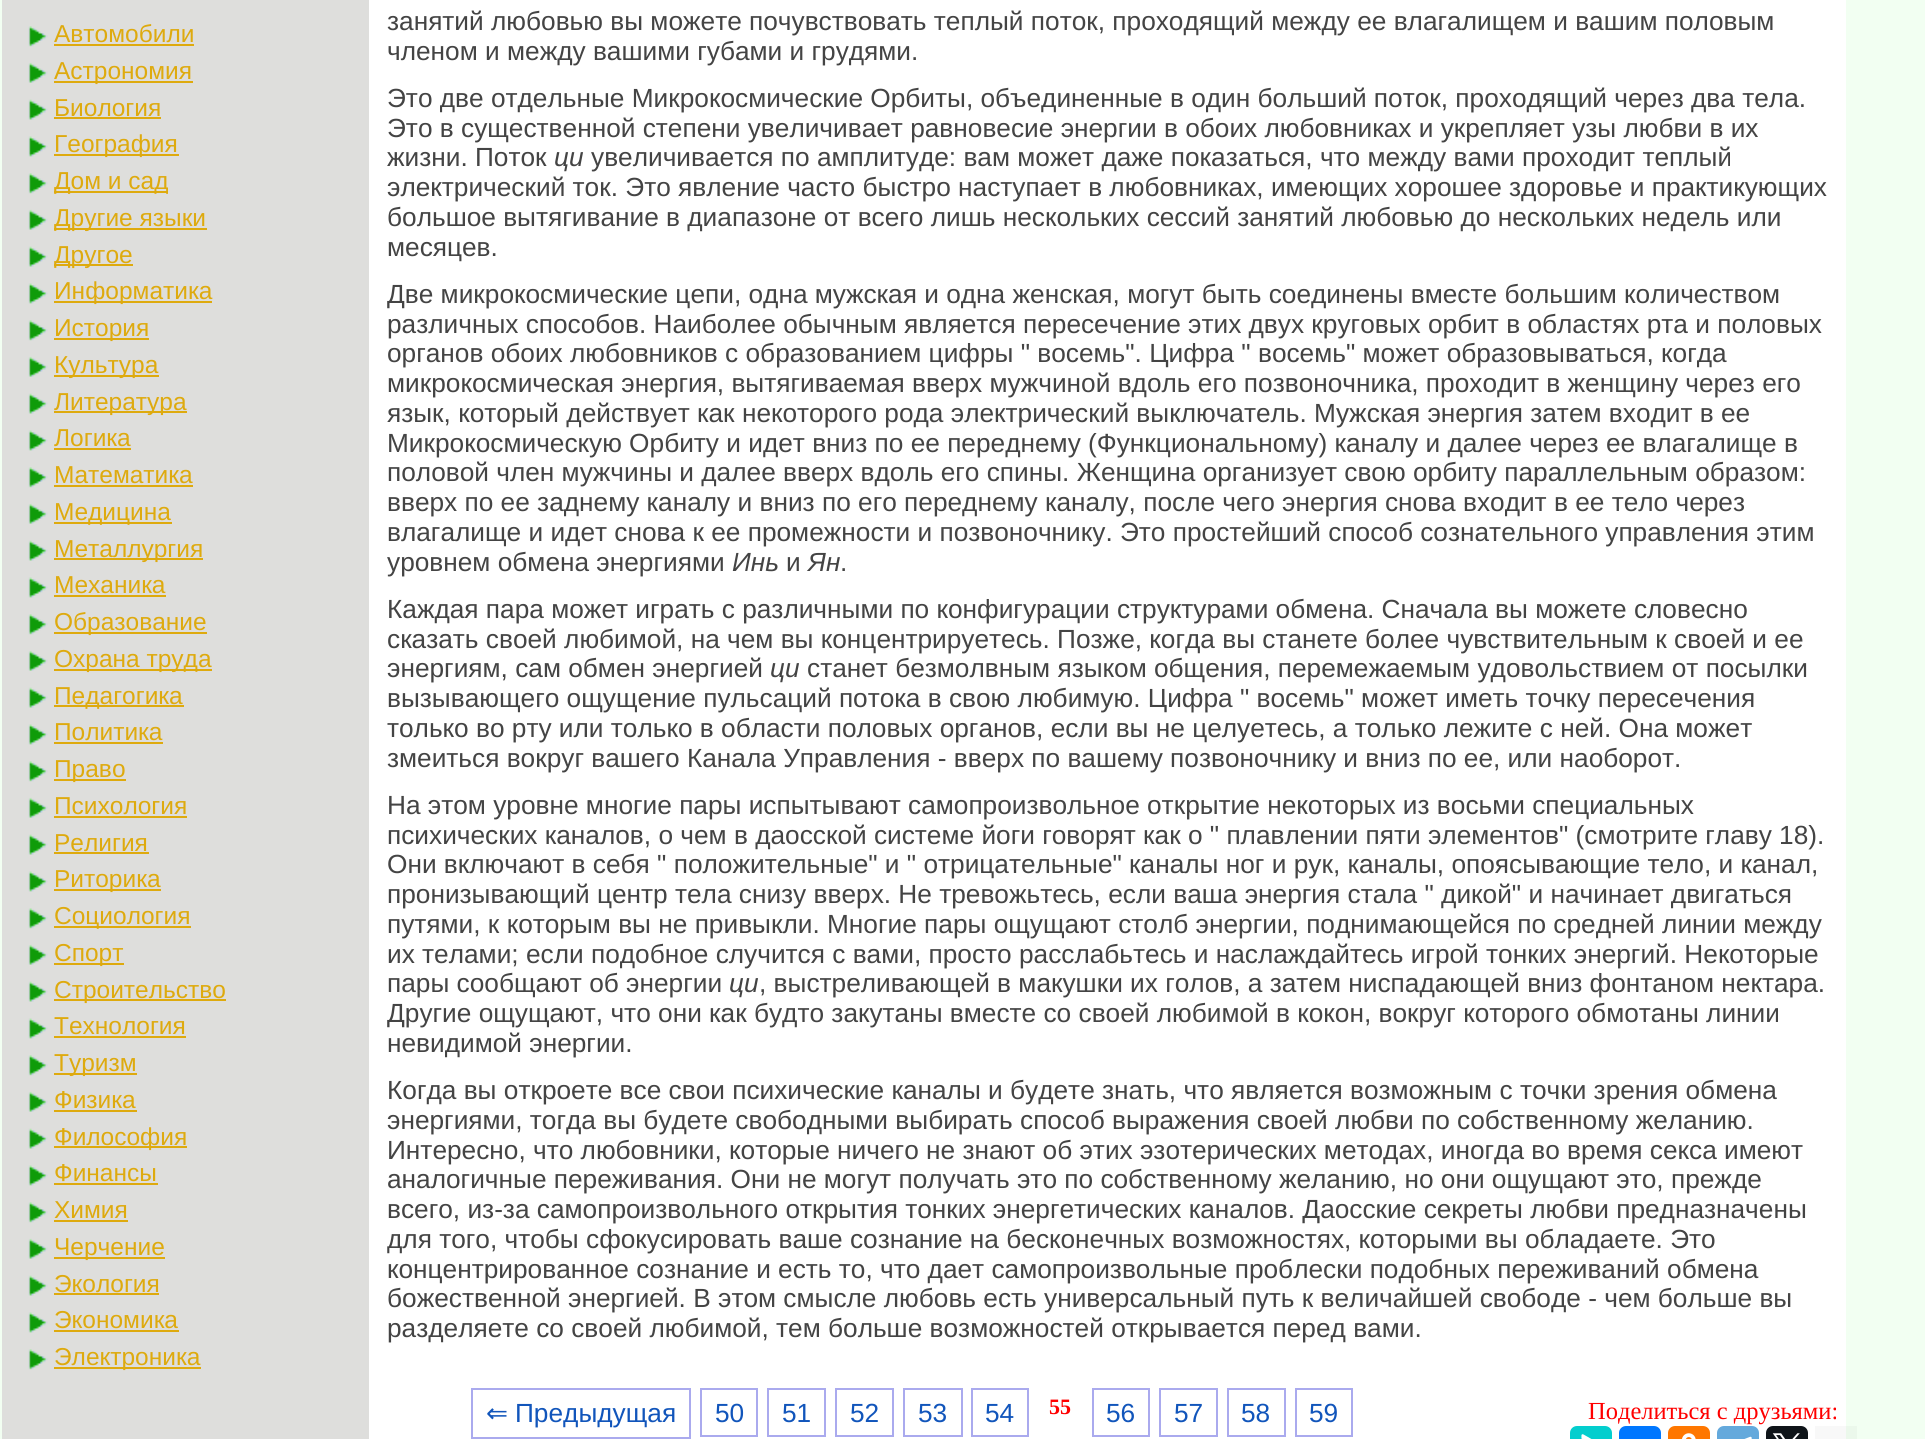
import math
import cairo

surface = cairo.ImageSurface(cairo.FORMAT_RGB24, 1925, 1439)
ctx = cairo.Context(surface)
options = cairo.FontOptions()
options.set_hint_metrics(cairo.HINT_METRICS_OFF)
options.set_hint_style(cairo.HINT_STYLE_NONE)
ctx.set_font_options(options)
ctx.set_miter_limit(4)


def set_color(code):
    ctx.set_source_rgb(*(v / 255 for v in bytes.fromhex(code[-6:])))


def draw_text(x, y, s, family, size, color, bold=False, italic=False):
    ctx.select_font_face(family, cairo.FONT_SLANT_ITALIC if italic else cairo.FONT_SLANT_NORMAL, cairo.FONT_WEIGHT_BOLD if bold else cairo.FONT_WEIGHT_NORMAL)
    ctx.set_font_size(size)
    set_color(color)
    ctx.move_to(x, y)
    ctx.show_text(s)


def fill_rect(x, y, w, h, color):
    set_color(color)
    ctx.rectangle(x, y, w, h)
    ctx.fill()


def rounded_rect(x, y, w, h, r):
    ctx.new_sub_path()
    for i, (u, v) in enumerate([(x + w - r, y + h - r), (x + r, y + h - r), (x + r, y + r), (x + w - r, y + r)]):
        ctx.arc(u, v, r, i * math.pi / 2, (i + 1) * math.pi / 2)
    ctx.close_path()


def draw_image(path, x, y, w, h):
    ctx.save()
    ctx.set_source_surface(cairo.ImageSurface.create_from_png(path), x, y)
    ctx.rectangle(x, y, w, h)
    ctx.fill()
    ctx.restore()


set_color("#f2fff2")
ctx.paint()
fill_rect(2, 0, 367, 1439, "#dededc")
draw_image("assets/img1.png", 28, 26, 20, 21)
draw_text(54, 42, "Автомобили", "Liberation Sans", 24.5, "#deaa0e")
fill_rect(54, 44, 140, 2, "#deaa0e")
draw_image("assets/img2.png", 28, 62, 20, 21)
fill_rect(54, 81, 139, 2, "#deaa0e")
draw_text(54, 79, "Астрономия", "Liberation Sans", 24.5, "#deaa0e")
draw_image("assets/img3.png", 28, 99, 20, 21)
draw_text(54, 116, "Биология", "Liberation Sans", 24.5, "#deaa0e")
fill_rect(54, 117, 107, 2, "#deaa0e")
draw_image("assets/img4.png", 28, 136, 20, 21)
fill_rect(54, 154, 125, 2, "#deaa0e")
draw_text(54, 152, "География", "Liberation Sans", 24.5, "#deaa0e")
draw_image("assets/img1.png", 28, 173, 20, 21)
fill_rect(54, 191, 114, 2, "#deaa0e")
draw_text(54, 189, "Дом и сад", "Liberation Sans", 24.5, "#deaa0e")
draw_image("assets/img2.png", 28, 209, 20, 21)
fill_rect(54, 228, 153, 2, "#deaa0e")
draw_text(54, 226, "Другие языки", "Liberation Sans", 24.5, "#deaa0e")
draw_image("assets/img3.png", 28, 246, 20, 21)
fill_rect(54, 264, 79, 2, "#deaa0e")
draw_text(54, 263, "Другое", "Liberation Sans", 24.5, "#deaa0e")
draw_image("assets/img4.png", 28, 283, 20, 21)
fill_rect(54, 301, 158, 2, "#deaa0e")
draw_text(54, 299, "Информатика", "Liberation Sans", 24.5, "#deaa0e")
draw_image("assets/img1.png", 28, 320, 20, 21)
fill_rect(54, 338, 95, 2, "#deaa0e")
draw_text(54, 336, "История", "Liberation Sans", 24.5, "#deaa0e")
draw_image("assets/img2.png", 28, 356, 20, 21)
fill_rect(54, 375, 105, 2, "#deaa0e")
draw_text(54, 373, "Культура", "Liberation Sans", 24.5, "#deaa0e")
draw_image("assets/img3.png", 28, 393, 20, 21)
fill_rect(54, 411, 133, 2, "#deaa0e")
draw_text(54, 410, "Литература", "Liberation Sans", 24.5, "#deaa0e")
draw_image("assets/img4.png", 28, 430, 20, 21)
draw_text(54, 446, "Логика", "Liberation Sans", 24.5, "#deaa0e")
fill_rect(54, 448, 77, 2, "#deaa0e")
draw_image("assets/img1.png", 28, 467, 20, 21)
draw_text(54, 483, "Математика", "Liberation Sans", 24.5, "#deaa0e")
fill_rect(54, 485, 139, 2, "#deaa0e")
draw_image("assets/img2.png", 28, 503, 20, 21)
fill_rect(54, 522, 118, 2, "#deaa0e")
draw_text(54, 520, "Медицина", "Liberation Sans", 24.5, "#deaa0e")
draw_image("assets/img3.png", 28, 540, 20, 21)
fill_rect(54, 558, 149, 2, "#deaa0e")
draw_text(54, 557, "Металлургия", "Liberation Sans", 24.5, "#deaa0e")
draw_image("assets/img4.png", 28, 577, 20, 21)
draw_text(54, 593, "Механика", "Liberation Sans", 24.5, "#deaa0e")
fill_rect(54, 595, 112, 2, "#deaa0e")
draw_image("assets/img1.png", 28, 614, 20, 21)
fill_rect(54, 632, 153, 2, "#deaa0e")
draw_text(54, 630, "Образование", "Liberation Sans", 24.5, "#deaa0e")
draw_image("assets/img2.png", 28, 650, 20, 21)
fill_rect(54, 669, 158, 2, "#deaa0e")
draw_text(54, 667, "Охрана труда", "Liberation Sans", 24.5, "#deaa0e")
draw_image("assets/img3.png", 28, 687, 20, 21)
fill_rect(54, 705, 130, 2, "#deaa0e")
draw_text(54, 704, "Педагогика", "Liberation Sans", 24.5, "#deaa0e")
draw_image("assets/img4.png", 28, 724, 20, 21)
draw_text(54, 740, "Политика", "Liberation Sans", 24.5, "#deaa0e")
fill_rect(54, 742, 109, 2, "#deaa0e")
draw_image("assets/img1.png", 28, 761, 20, 21)
fill_rect(54, 779, 72, 2, "#deaa0e")
draw_text(54, 777, "Право", "Liberation Sans", 24.5, "#deaa0e")
draw_image("assets/img2.png", 28, 797, 20, 21)
draw_text(54, 814, "Психология", "Liberation Sans", 24.5, "#deaa0e")
fill_rect(54, 816, 133, 2, "#deaa0e")
draw_image("assets/img3.png", 28, 834, 20, 21)
draw_text(54, 851, "Религия", "Liberation Sans", 24.5, "#deaa0e")
fill_rect(54, 852, 95, 2, "#deaa0e")
draw_image("assets/img4.png", 28, 871, 20, 21)
fill_rect(54, 889, 107, 2, "#deaa0e")
draw_text(54, 887, "Риторика", "Liberation Sans", 24.5, "#deaa0e")
draw_image("assets/img1.png", 28, 908, 20, 21)
fill_rect(54, 926, 137, 2, "#deaa0e")
draw_text(54, 924, "Социология", "Liberation Sans", 24.5, "#deaa0e")
draw_image("assets/img2.png", 28, 944, 20, 21)
fill_rect(54, 963, 70, 2, "#deaa0e")
draw_text(54, 961, "Спорт", "Liberation Sans", 24.5, "#deaa0e")
draw_image("assets/img3.png", 28, 981, 20, 21)
fill_rect(54, 999, 172, 2, "#deaa0e")
draw_text(54, 998, "Строительство", "Liberation Sans", 24.5, "#deaa0e")
draw_image("assets/img4.png", 28, 1018, 20, 21)
draw_text(54, 1034, "Технология", "Liberation Sans", 24.5, "#deaa0e")
fill_rect(54, 1036, 132, 2, "#deaa0e")
draw_image("assets/img1.png", 28, 1055, 20, 21)
fill_rect(54, 1073, 83, 2, "#deaa0e")
draw_text(54, 1071, "Туризм", "Liberation Sans", 24.5, "#deaa0e")
draw_image("assets/img2.png", 28, 1091, 20, 21)
draw_text(54, 1108, "Физика", "Liberation Sans", 24.5, "#deaa0e")
fill_rect(54, 1110, 83, 2, "#deaa0e")
draw_image("assets/img3.png", 28, 1128, 20, 21)
fill_rect(54, 1146, 133, 2, "#deaa0e")
draw_text(54, 1145, "Философия", "Liberation Sans", 24.5, "#deaa0e")
draw_image("assets/img4.png", 28, 1165, 20, 21)
draw_text(54, 1181, "Финансы", "Liberation Sans", 24.5, "#deaa0e")
fill_rect(54, 1183, 104, 2, "#deaa0e")
draw_image("assets/img1.png", 28, 1202, 20, 21)
draw_text(54, 1218, "Химия", "Liberation Sans", 24.5, "#deaa0e")
fill_rect(54, 1220, 74, 2, "#deaa0e")
draw_image("assets/img2.png", 28, 1238, 20, 21)
fill_rect(54, 1257, 111, 2, "#deaa0e")
draw_text(54, 1255, "Черчение", "Liberation Sans", 24.5, "#deaa0e")
draw_image("assets/img5.png", 28, 1275, 20, 21)
draw_text(54, 1292, "Экология", "Liberation Sans", 24.5, "#deaa0e")
fill_rect(54, 1293, 105, 2, "#deaa0e")
draw_image("assets/img4.png", 28, 1312, 20, 21)
draw_text(54, 1328, "Экономика", "Liberation Sans", 24.5, "#deaa0e")
fill_rect(54, 1330, 125, 2, "#deaa0e")
draw_image("assets/img1.png", 28, 1349, 20, 21)
fill_rect(54, 1367, 147, 2, "#deaa0e")
draw_text(54, 1365, "Электроника", "Liberation Sans", 24.5, "#deaa0e")
fill_rect(369, 0, 1477, 1439, "#ffffff")
draw_text(387, 30, "занятий любовью вы можете почувствовать теплый поток, проходящий между ее влагалищем и вашим половым", "Liberation Sans", 26.25, "#444444")
draw_text(387, 60, "членом и между вашими губами и грудями.", "Liberation Sans", 26.25, "#444444")
draw_text(387, 107, "Это две отдельные Микрокосмические Орбиты, объединенные в один больший поток, проходящий через два тела.", "Liberation Sans", 26.25, "#444444")
draw_text(387, 137, "Это в существенной степени увеличивает равновесие энергии в обоих любовниках и укрепляет узы любви в их", "Liberation Sans", 26.25, "#444444")
draw_text(387, 166, "жизни. Поток", "Liberation Sans", 26.25, "#444444")
draw_text(554, 166, "ци", "Liberation Sans", 26.25, "#444444", italic=True)
draw_text(591, 166, "увеличивается по амплитуде: вам может даже показаться, что между вами проходит теплый", "Liberation Sans", 26.25, "#444444")
draw_text(387, 196, "электрический ток. Это явление часто быстро наступает в любовниках, имеющих хорошее здоровье и практикующих", "Liberation Sans", 26.25, "#444444")
draw_text(387, 226, "большое вытягивание в диапазоне от всего лишь нескольких сессий занятий любовью до нескольких недель или", "Liberation Sans", 26.25, "#444444")
draw_text(387, 256, "месяцев.", "Liberation Sans", 26.25, "#444444")
draw_text(387, 303, "Две микрокосмические цепи, одна мужская и одна женская, могут быть соединены вместе большим количеством", "Liberation Sans", 26.25, "#444444")
draw_text(387, 333, "различных способов. Наиболее обычным является пересечение этих двух круговых орбит в областях рта и половых", "Liberation Sans", 26.25, "#444444")
draw_text(387, 362, "органов обоих любовников с образованием цифры \" восемь\". Цифра \" восемь\" может образовываться, когда", "Liberation Sans", 26.25, "#444444")
draw_text(387, 392, "микрокосмическая энергия, вытягиваемая вверх мужчиной вдоль его позвоночника, проходит в женщину через его", "Liberation Sans", 26.25, "#444444")
draw_text(387, 422, "язык, который действует как некоторого рода электрический выключатель. Мужская энергия затем входит в ее", "Liberation Sans", 26.25, "#444444")
draw_text(387, 452, "Микрокосмическую Орбиту и идет вниз по ее переднему (Функциональному) каналу и далее через ее влагалище в", "Liberation Sans", 26.25, "#444444")
draw_text(387, 481, "половой член мужчины и далее вверх вдоль его спины. Женщина организует свою орбиту параллельным образом:", "Liberation Sans", 26.25, "#444444")
draw_text(387, 511, "вверх по ее заднему каналу и вниз по его переднему каналу, после чего энергия снова входит в ее тело через", "Liberation Sans", 26.25, "#444444")
draw_text(387, 541, "влагалище и идет снова к ее промежности и позвоночнику. Это простейший способ сознательного управления этим", "Liberation Sans", 26.25, "#444444")
draw_text(387, 571, "уровнем обмена энергиями", "Liberation Sans", 26.25, "#444444")
draw_text(732, 571, "Инь", "Liberation Sans", 26.25, "#444444", italic=True)
draw_text(786, 571, "и", "Liberation Sans", 26.25, "#444444")
draw_text(808, 571, "Ян", "Liberation Sans", 26.25, "#444444", italic=True)
draw_text(840, 571, ".", "Liberation Sans", 26.25, "#444444")
draw_text(387, 618, "Каждая пара может играть с различными по конфигурации структурами обмена. Сначала вы можете словесно", "Liberation Sans", 26.25, "#444444")
draw_text(387, 648, "сказать своей любимой, на чем вы концентрируетесь. Позже, когда вы станете более чувствительным к своей и ее", "Liberation Sans", 26.25, "#444444")
draw_text(387, 677, "энергиям, сам обмен энергией", "Liberation Sans", 26.25, "#444444")
draw_text(770, 677, "ци", "Liberation Sans", 26.25, "#444444", italic=True)
draw_text(807, 677, "станет безмолвным языком общения, перемежаемым удовольствием от посылки", "Liberation Sans", 26.25, "#444444")
draw_text(387, 707, "вызывающего ощущение пульсаций потока в свою любимую. Цифра \" восемь\" может иметь точку пересечения", "Liberation Sans", 26.25, "#444444")
draw_text(387, 737, "только во рту или только в области половых органов, если вы не целуетесь, а только лежите с ней. Она может", "Liberation Sans", 26.25, "#444444")
draw_text(387, 767, "змеиться вокруг вашего Канала Управления - вверх по вашему позвоночнику и вниз по ее, или наоборот.", "Liberation Sans", 26.25, "#444444")
draw_text(387, 814, "На этом уровне многие пары испытывают самопроизвольное открытие некоторых из восьми специальных", "Liberation Sans", 26.25, "#444444")
draw_text(387, 844, "психических каналов, о чем в даосской системе йоги говорят как о \" плавлении пяти элементов\" (смотрите главу 18).", "Liberation Sans", 26.25, "#444444")
draw_text(387, 873, "Они включают в себя \" положительные\" и \" отрицательные\" каналы ног и рук, каналы, опоясывающие тело, и канал,", "Liberation Sans", 26.25, "#444444")
draw_text(387, 903, "пронизывающий центр тела снизу вверх. Не тревожьтесь, если ваша энергия стала \" дикой\" и начинает двигаться", "Liberation Sans", 26.25, "#444444")
draw_text(387, 933, "путями, к которым вы не привыкли. Многие пары ощущают столб энергии, поднимающейся по средней линии между", "Liberation Sans", 26.25, "#444444")
draw_text(387, 963, "их телами; если подобное случится с вами, просто расслабьтесь и наслаждайтесь игрой тонких энергий. Некоторые", "Liberation Sans", 26.25, "#444444")
draw_text(387, 992, "пары сообщают об энергии", "Liberation Sans", 26.25, "#444444")
draw_text(729, 992, "ци", "Liberation Sans", 26.25, "#444444", italic=True)
draw_text(759, 992, ", выстреливающей в макушки их голов, а затем ниспадающей вниз фонтаном нектара.", "Liberation Sans", 26.25, "#444444")
draw_text(387, 1022, "Другие ощущают, что они как будто закутаны вместе со своей любимой в кокон, вокруг которого обмотаны линии", "Liberation Sans", 26.25, "#444444")
draw_text(387, 1052, "невидимой энергии.", "Liberation Sans", 26.25, "#444444")
draw_text(387, 1099, "Когда вы откроете все свои психические каналы и будете знать, что является возможным с точки зрения обмена", "Liberation Sans", 26.25, "#444444")
draw_text(387, 1129, "энергиями, тогда вы будете свободными выбирать способ выражения своей любви по собственному желанию.", "Liberation Sans", 26.25, "#444444")
draw_text(387, 1159, "Интересно, что любовники, которые ничего не знают об этих эзотерических методах, иногда во время секса имеют", "Liberation Sans", 26.25, "#444444")
draw_text(387, 1188, "аналогичные переживания. Они не могут получать это по собственному желанию, но они ощущают это, прежде", "Liberation Sans", 26.25, "#444444")
draw_text(387, 1218, "всего, из-за самопроизвольного открытия тонких энергетических каналов. Даосские секреты любви предназначены", "Liberation Sans", 26.25, "#444444")
draw_text(387, 1248, "для того, чтобы сфокусировать ваше сознание на бесконечных возможностях, которыми вы обладаете. Это", "Liberation Sans", 26.25, "#444444")
draw_text(387, 1278, "концентрированное сознание и есть то, что дает самопроизвольные проблески подобных переживаний обмена", "Liberation Sans", 26.25, "#444444")
draw_text(387, 1307, "божественной энергией. В этом смысле любовь есть универсальный путь к величайшей свободе - чем больше вы", "Liberation Sans", 26.25, "#444444")
draw_text(387, 1337, "разделяете со своей любимой, тем больше возможностей открывается перед вами.", "Liberation Sans", 26.25, "#444444")
ctx.rectangle(472, 1389, 218, 49)
set_color("#aaaaee")
ctx.stroke()
draw_text(486, 1422, "⇐", "DejaVu Sans", 26.25, "#1155bb")
draw_text(515, 1422, "Предыдущая", "Liberation Sans", 26.25, "#1155bb")
ctx.rectangle(701, 1389, 56, 47)
set_color("#aaaaee")
ctx.stroke()
draw_text(715, 1422, "50", "Liberation Sans", 26.25, "#1155bb")
ctx.rectangle(768, 1389, 57, 47)
set_color("#aaaaee")
ctx.stroke()
draw_text(782, 1422, "51", "Liberation Sans", 26.25, "#1155bb")
ctx.rectangle(836, 1389, 57, 47)
set_color("#aaaaee")
ctx.stroke()
draw_text(850, 1422, "52", "Liberation Sans", 26.25, "#1155bb")
ctx.rectangle(904, 1389, 58, 47)
set_color("#aaaaee")
ctx.stroke()
draw_text(918, 1422, "53", "Liberation Sans", 26.25, "#1155bb")
ctx.rectangle(972, 1389, 56, 47)
set_color("#aaaaee")
ctx.stroke()
draw_text(985, 1422, "54", "Liberation Sans", 26.25, "#1155bb")
draw_text(1049, 1414, "55", "Liberation Serif", 22, "#ff0000", bold=True)
ctx.rectangle(1093, 1389, 56, 47)
set_color("#aaaaee")
ctx.stroke()
draw_text(1106, 1422, "56", "Liberation Sans", 26.25, "#1155bb")
ctx.rectangle(1160, 1389, 57, 47)
set_color("#aaaaee")
ctx.stroke()
draw_text(1174, 1422, "57", "Liberation Sans", 26.25, "#1155bb")
ctx.rectangle(1228, 1389, 57, 47)
set_color("#aaaaee")
ctx.stroke()
draw_text(1241, 1422, "58", "Liberation Sans", 26.25, "#1155bb")
ctx.rectangle(1296, 1389, 56, 47)
set_color("#aaaaee")
ctx.stroke()
draw_text(1309, 1422, "59", "Liberation Sans", 26.25, "#1155bb")
draw_text(1588, 1419, "Поделиться с друзьями:", "Liberation Serif", 24.5, "#ff0000")
set_color("#03cece")
rounded_rect(1570, 1426, 42, 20, 7)
ctx.fill()
draw_image("assets/img6.png", 1581, 1434, 11, 5)
set_color("#0077ff")
rounded_rect(1619, 1426, 42, 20, 7)
ctx.fill()
set_color("#ff7700")
rounded_rect(1668, 1426, 42, 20, 7)
ctx.fill()
draw_image("assets/img7.png", 1682, 1433, 14, 6)
set_color("#64a9dc")
rounded_rect(1717, 1426, 42, 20, 7)
ctx.fill()
draw_image("assets/img8.png", 1744, 1436, 8, 3)
set_color("#0f1419")
rounded_rect(1766, 1426, 42, 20, 7)
ctx.fill()
draw_image("assets/img9.png", 1772, 1433, 28, 6)
ctx.set_source_rgba(0, 0, 0, 0.03)
ctx.rectangle(1815, 1426, 42, 13)
ctx.fill()
surface.write_to_png("output.png")
